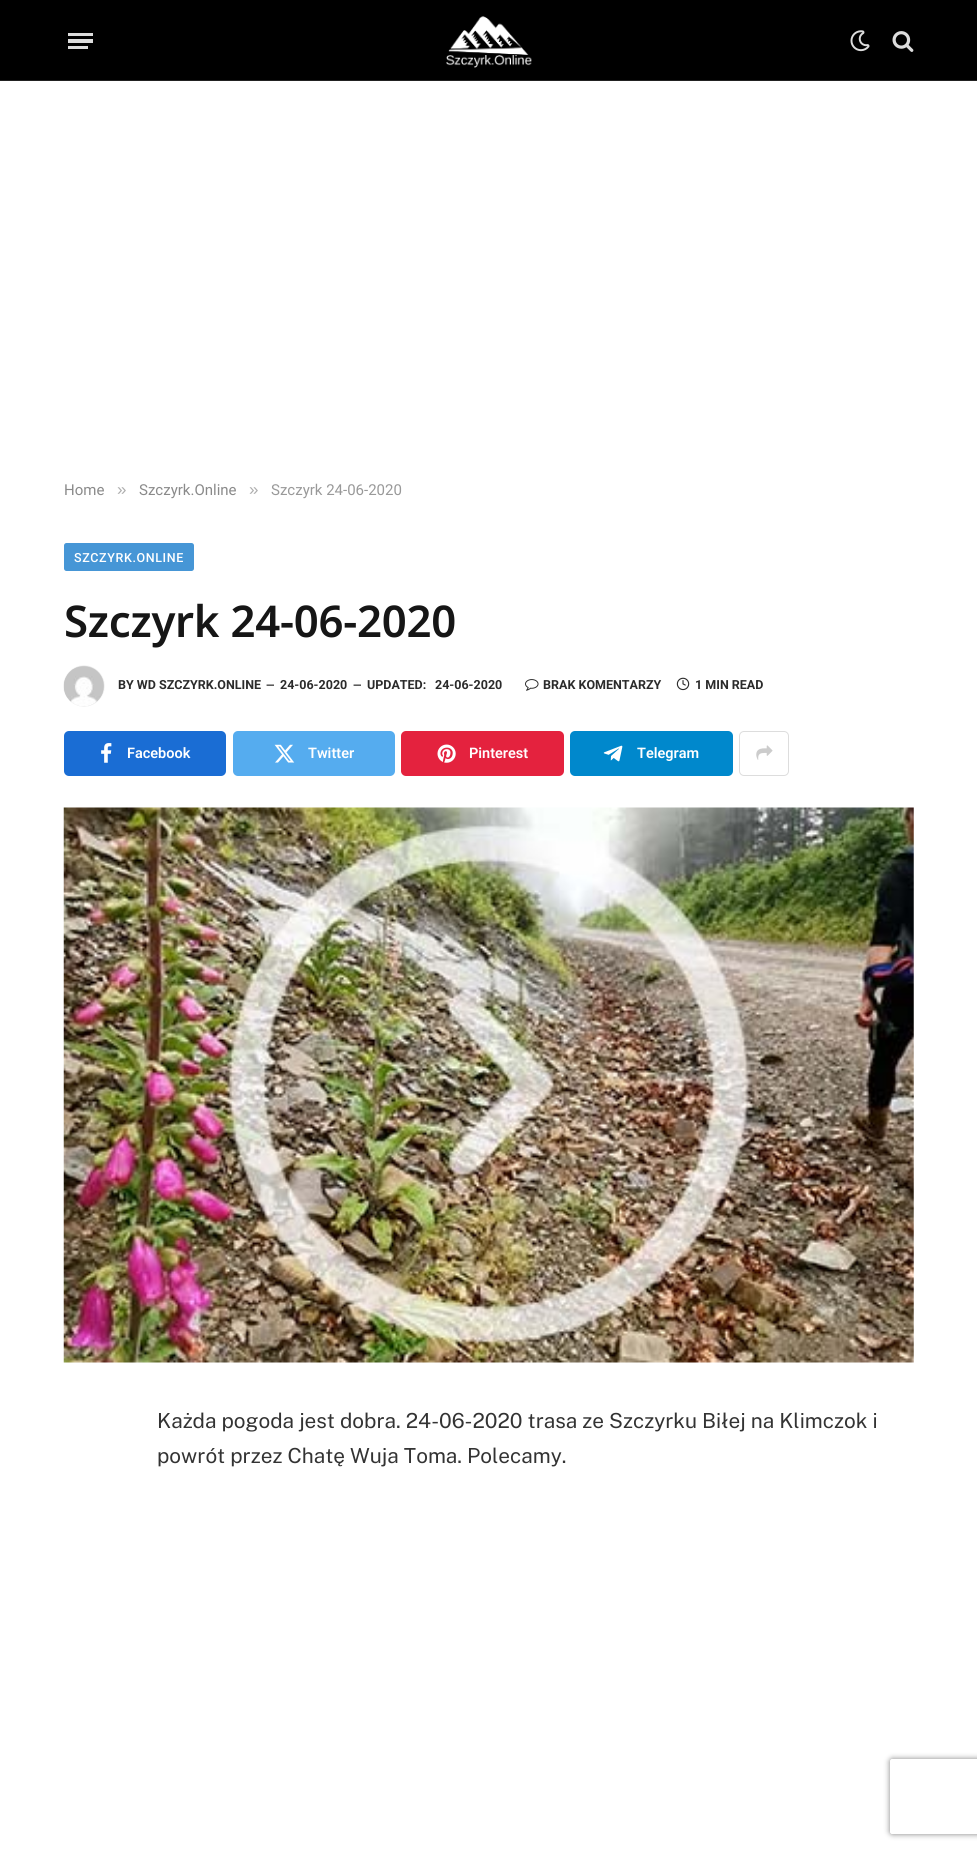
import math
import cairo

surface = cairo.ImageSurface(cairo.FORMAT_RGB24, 977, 1851)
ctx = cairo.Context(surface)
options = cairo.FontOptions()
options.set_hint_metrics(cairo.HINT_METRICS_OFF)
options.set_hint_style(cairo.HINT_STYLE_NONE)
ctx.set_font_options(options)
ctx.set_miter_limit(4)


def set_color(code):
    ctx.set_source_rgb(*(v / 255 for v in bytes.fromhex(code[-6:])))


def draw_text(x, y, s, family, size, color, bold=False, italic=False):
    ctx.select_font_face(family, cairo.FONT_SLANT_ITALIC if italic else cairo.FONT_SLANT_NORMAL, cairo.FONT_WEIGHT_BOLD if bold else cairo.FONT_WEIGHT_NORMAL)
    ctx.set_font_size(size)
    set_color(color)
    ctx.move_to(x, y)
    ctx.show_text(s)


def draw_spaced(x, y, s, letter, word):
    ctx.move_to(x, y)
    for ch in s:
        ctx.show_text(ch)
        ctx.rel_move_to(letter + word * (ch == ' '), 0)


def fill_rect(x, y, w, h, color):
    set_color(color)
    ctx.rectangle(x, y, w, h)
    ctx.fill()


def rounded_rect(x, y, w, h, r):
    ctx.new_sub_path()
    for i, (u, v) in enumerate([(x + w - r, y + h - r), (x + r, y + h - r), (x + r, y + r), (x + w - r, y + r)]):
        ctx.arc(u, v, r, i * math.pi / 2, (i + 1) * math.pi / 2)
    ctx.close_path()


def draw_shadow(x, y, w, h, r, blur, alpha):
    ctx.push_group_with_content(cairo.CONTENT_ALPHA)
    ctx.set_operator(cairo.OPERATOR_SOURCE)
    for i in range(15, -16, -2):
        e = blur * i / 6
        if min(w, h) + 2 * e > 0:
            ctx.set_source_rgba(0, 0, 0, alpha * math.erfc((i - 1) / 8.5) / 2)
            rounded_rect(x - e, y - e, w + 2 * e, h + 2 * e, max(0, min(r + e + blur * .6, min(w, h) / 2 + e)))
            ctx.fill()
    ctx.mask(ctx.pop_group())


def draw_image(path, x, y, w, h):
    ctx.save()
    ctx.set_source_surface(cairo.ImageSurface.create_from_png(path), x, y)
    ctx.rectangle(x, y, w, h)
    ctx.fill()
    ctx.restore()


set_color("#ffffff")
ctx.paint()
fill_rect(0, 0, 977, 80, "#000000")
fill_rect(0, 80, 977, 1, "#222222")
fill_rect(68, 46, 20, 3, "#dddddd")
fill_rect(68, 33, 25, 3, "#dddddd")
fill_rect(68, 39, 25, 4, "#dddddd")
draw_image("assets/img1.png", 446, 16, 86, 52)
draw_image("assets/img2.png", 850, 30, 20, 22)
draw_image("assets/img3.png", 892, 31, 22, 21)
draw_text(64, 495, "Home", "Roboto", 15, "#8a8a8a")
draw_text(117, 495, "»", "Liberation Sans", 17, "#adadad")
draw_text(139, 495, "Szczyrk.Online", "Roboto", 15, "#8a8a8a")
draw_text(249, 495, "»", "Liberation Sans", 17, "#adadad")
draw_text(271, 495, "Szczyrk 24-06-2020", "Roboto", 15, "#999999")
set_color("#4696d6")
rounded_rect(64, 543, 130, 28, 2.5)
ctx.fill()
ctx.select_font_face("Roboto Medium")
ctx.set_font_size(12.5)
set_color("#ffffff")
draw_spaced(74, 562, "SZCZYRK.ONLINE", 0.6, 0)
ctx.select_font_face("Noto Sans SemiBold")
ctx.set_font_size(43.75)
set_color("#161616")
draw_spaced(64, 637, "Szczyrk 24-06-2020", -0.25, 0)
set_color("#000000")
draw_shadow(64, 666, 40, 40, 20, 0.5, 0.2)
draw_image("assets/img4.png", 64, 666, 40, 40)
draw_text(118, 689, "BY WD SZCZYRK.ONLINE", "Roboto", 12.5, "#2b2b2b", bold=True)
draw_text(266, 689, "—", "Roboto", 11, "#2b2b2b", bold=True)
draw_text(280, 689, "24-06-2020", "Roboto", 12.5, "#2b2b2b", bold=True)
draw_text(353, 689, "—", "Roboto", 11, "#2b2b2b", bold=True)
draw_text(367, 689, "UPDATED:", "Roboto", 12.5, "#2b2b2b", bold=True)
draw_text(435, 689, "24-06-2020", "Roboto", 12.5, "#2b2b2b", bold=True)
draw_image("assets/img5.png", 525, 679, 14, 12)
draw_text(543, 689, "BRAK KOMENTARZY", "Roboto", 12.5, "#2b2b2b", bold=True)
draw_image("assets/img6.png", 676, 677, 14, 14)
draw_text(695, 689, "1 MIN READ", "Roboto", 12.5, "#2b2b2b", bold=True)
set_color("#1a6dd4")
rounded_rect(64, 731, 162, 45, 5)
ctx.fill()
draw_image("assets/img7.png", 101, 743, 11, 20)
draw_text(127, 758, "Facebook", "Roboto SemiBold", 14.5, "#ffffff")
set_color("#55acef")
rounded_rect(233, 731, 162, 45, 5)
ctx.fill()
draw_image("assets/img8.png", 274, 744, 21, 19)
draw_text(308, 758, "Twitter", "Roboto SemiBold", 14.5, "#ffffff")
set_color("#e4223e")
rounded_rect(401, 731, 163, 45, 5)
ctx.fill()
draw_image("assets/img9.png", 437, 744, 19, 19)
draw_text(469, 758, "Pinterest", "Roboto SemiBold", 14.5, "#ffffff")
set_color("#0088cc")
rounded_rect(570, 731, 163, 45, 5)
ctx.fill()
draw_image("assets/img10.png", 603, 745, 20, 17)
draw_text(637, 758, "Telegram", "Roboto SemiBold", 14.5, "#ffffff")
rounded_rect(739.5, 731.5, 49, 44, 4.5)
set_color("#dddddd")
ctx.set_line_width(1)
ctx.stroke()
draw_image("assets/img11.png", 756, 745, 17, 15)
draw_image("assets/img12.png", 63, 807, 851, 556)
draw_text(157, 1428, "Każda pogoda jest dobra. 24-06-2020 trasa ze Szczyrku Biłej na Klimczok i", "Public Sans", 20.75, "#333333")
draw_text(157, 1463, "powrót przez Chatę Wuja Toma. Polecamy.", "Public Sans", 20.75, "#333333")
ctx.save()
ctx.set_fill_rule(cairo.FILL_RULE_EVEN_ODD)
ctx.new_path()
ctx.move_to(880, 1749)
ctx.line_to(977, 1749)
ctx.line_to(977, 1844)
ctx.line_to(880, 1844)
ctx.close_path()
ctx.move_to(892.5, 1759)
ctx.line_to(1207.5, 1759)
ctx.curve_to(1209, 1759, 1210, 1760, 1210, 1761.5)
ctx.line_to(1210, 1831.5)
ctx.curve_to(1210, 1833, 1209, 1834, 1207.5, 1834)
ctx.line_to(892.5, 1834)
ctx.curve_to(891, 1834, 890, 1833, 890, 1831.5)
ctx.line_to(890, 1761.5)
ctx.curve_to(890, 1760, 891, 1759, 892.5, 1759)
ctx.close_path()
ctx.clip()
set_color("#808080")
draw_shadow(890, 1759, 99, 75, 2.5, 3, 1)
ctx.restore()
surface.write_to_png("output.png")
